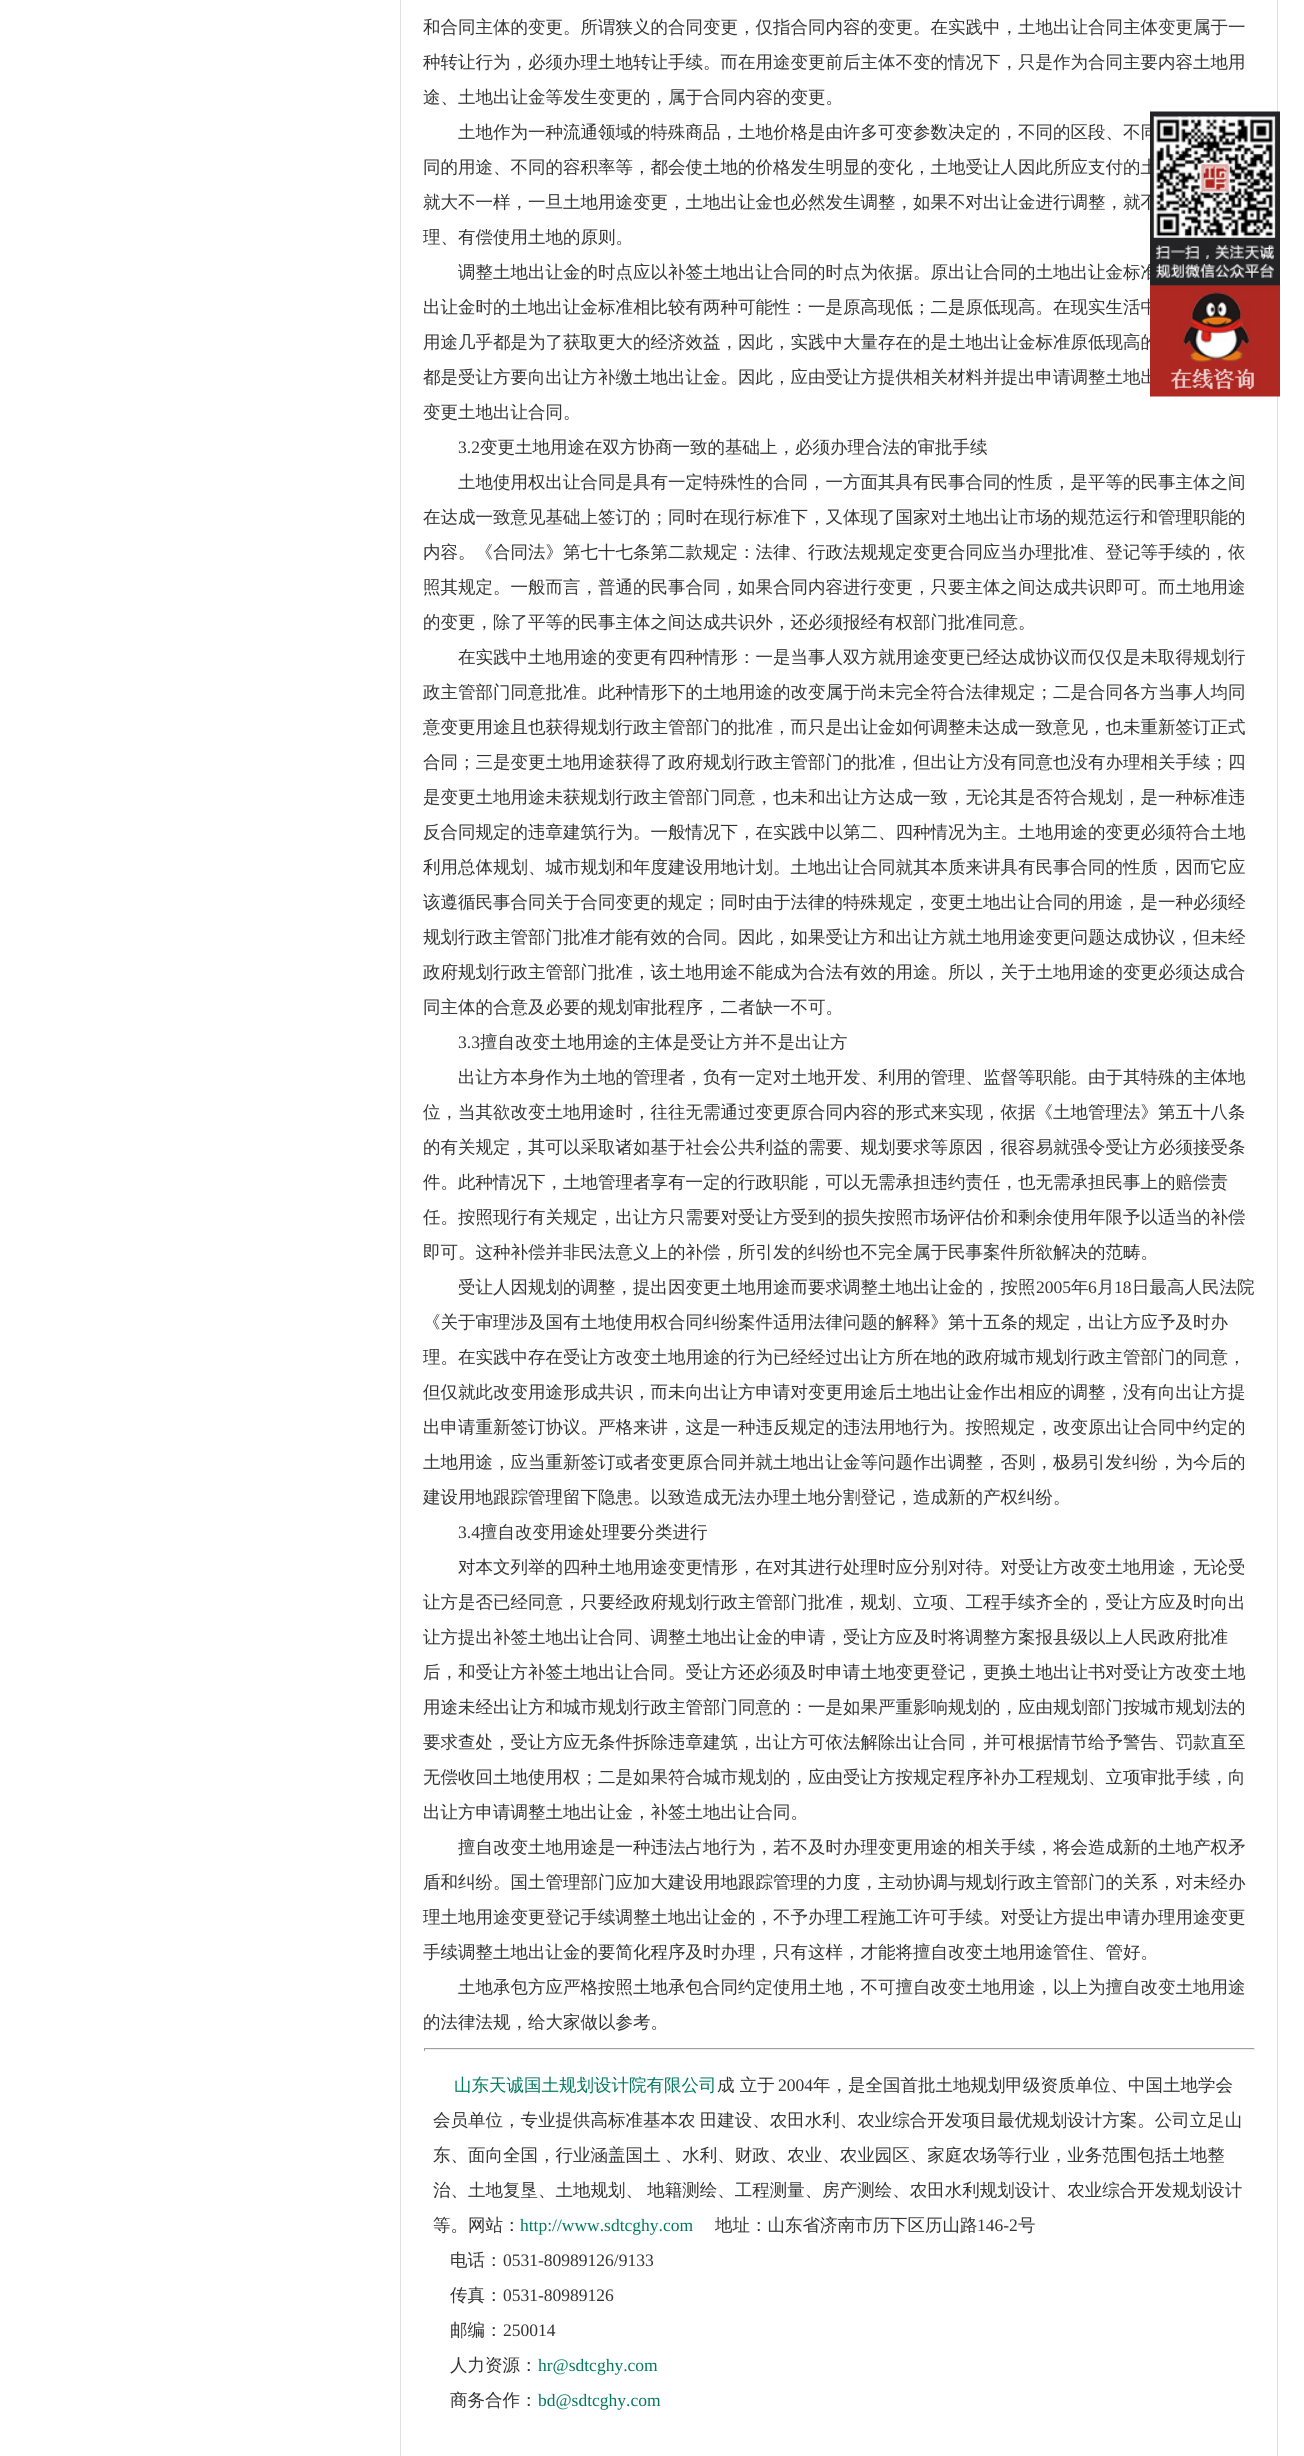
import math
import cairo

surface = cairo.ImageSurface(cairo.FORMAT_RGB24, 1304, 2456)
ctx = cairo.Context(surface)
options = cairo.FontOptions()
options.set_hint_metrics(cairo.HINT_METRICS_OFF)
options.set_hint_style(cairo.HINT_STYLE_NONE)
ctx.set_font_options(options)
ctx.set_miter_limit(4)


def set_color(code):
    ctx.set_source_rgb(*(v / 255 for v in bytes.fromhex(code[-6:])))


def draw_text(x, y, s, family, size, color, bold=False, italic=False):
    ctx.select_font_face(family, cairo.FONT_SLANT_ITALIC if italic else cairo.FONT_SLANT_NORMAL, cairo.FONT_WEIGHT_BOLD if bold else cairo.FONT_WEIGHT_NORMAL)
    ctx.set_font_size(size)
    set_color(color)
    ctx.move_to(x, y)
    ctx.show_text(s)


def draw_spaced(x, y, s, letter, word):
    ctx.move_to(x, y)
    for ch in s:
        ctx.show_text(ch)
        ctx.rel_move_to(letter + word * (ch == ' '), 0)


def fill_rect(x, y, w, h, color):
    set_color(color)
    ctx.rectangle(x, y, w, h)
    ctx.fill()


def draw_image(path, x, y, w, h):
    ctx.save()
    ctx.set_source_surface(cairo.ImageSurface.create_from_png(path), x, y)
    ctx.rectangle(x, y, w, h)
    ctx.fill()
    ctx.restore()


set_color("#ffffff")
ctx.paint()
ctx.rectangle(400.5, -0.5, 877, 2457)
set_color("#e0e0e0")
ctx.set_line_width(1)
ctx.stroke()
draw_text(423, 33, "和合同主体的变更。所谓狭义的合同变更，仅指合同内容的变更。在实践中，土地出让合同主体变更属于一", "WenQuanYi Zen Hei Medium", 17.5, "#333333")
draw_text(423, 68, "种转让行为，必须办理土地转让手续。而在用途变更前后主体不变的情况下，只是作为合同主要内容土地用", "WenQuanYi Zen Hei Medium", 17.5, "#333333")
draw_text(423, 103, "途、土地出让金等发生变更的，属于合同内容的变更。", "WenQuanYi Zen Hei Medium", 17.5, "#333333")
draw_text(458, 138, "土地作为一种流通领域的特殊商品，土地价格是由许多可变参数决定的，不同的区段、不同", "WenQuanYi Zen Hei Medium", 17.5, "#333333")
draw_text(423, 173, "同的用途、不同的容积率等，都会使土地的价格发生明显的变化，土地受让人因此所应支付的土", "WenQuanYi Zen Hei Medium", 17.5, "#333333")
draw_text(423, 208, "就大不一样，一旦土地用途变更，土地出让金也必然发生调整，如果不对出让金进行调整，就不", "WenQuanYi Zen Hei Medium", 17.5, "#333333")
draw_text(423, 243, "理、有偿使用土地的原则。", "WenQuanYi Zen Hei Medium", 17.5, "#333333")
draw_text(458, 278, "调整土地出让金的时点应以补签土地出让合同的时点为依据。原出让合同的土地出让金标准", "WenQuanYi Zen Hei Medium", 17.5, "#333333")
draw_text(423, 313, "出让金时的土地出让金标准相比较有两种可能性：一是原高现低；二是原低现高。在现实生活中", "WenQuanYi Zen Hei Medium", 17.5, "#333333")
draw_text(423, 348, "用途几乎都是为了获取更大的经济效益，因此，实践中大量存在的是土地出让金标准原低现高的", "WenQuanYi Zen Hei Medium", 17.5, "#333333")
draw_text(423, 383, "都是受让方要向出让方补缴土地出让金。因此，应由受让方提供相关材料并提出申请调整土地出", "WenQuanYi Zen Hei Medium", 17.5, "#333333")
draw_text(423, 418, "变更土地出让合同。", "WenQuanYi Zen Hei Medium", 17.5, "#333333")
draw_text(458, 453, "3.2", "Liberation Serif", 17.5, "#333333")
draw_text(480, 453, "变更土地用途在双方协商一致的基础上，必须办理合法的审批手续", "WenQuanYi Zen Hei Medium", 17.5, "#333333")
draw_text(458, 488, "土地使用权出让合同是具有一定特殊性的合同，一方面其具有民事合同的性质，是平等的民事主体之间", "WenQuanYi Zen Hei Medium", 17.5, "#333333")
draw_text(423, 523, "在达成一致意见基础上签订的；同时在现行标准下，又体现了国家对土地出让市场的规范运行和管理职能的", "WenQuanYi Zen Hei Medium", 17.5, "#333333")
draw_text(423, 558, "内容。《合同法》第七十七条第二款规定：法律、行政法规规定变更合同应当办理批准、登记等手续的，依", "WenQuanYi Zen Hei Medium", 17.5, "#333333")
draw_text(423, 593, "照其规定。一般而言，普通的民事合同，如果合同内容进行变更，只要主体之间达成共识即可。而土地用途", "WenQuanYi Zen Hei Medium", 17.5, "#333333")
draw_text(423, 628, "的变更，除了平等的民事主体之间达成共识外，还必须报经有权部门批准同意。", "WenQuanYi Zen Hei Medium", 17.5, "#333333")
draw_text(458, 663, "在实践中土地用途的变更有四种情形：一是当事人双方就用途变更已经达成协议而仅仅是未取得规划行", "WenQuanYi Zen Hei Medium", 17.5, "#333333")
draw_text(423, 698, "政主管部门同意批准。此种情形下的土地用途的改变属于尚未完全符合法律规定；二是合同各方当事人均同", "WenQuanYi Zen Hei Medium", 17.5, "#333333")
draw_text(423, 733, "意变更用途且也获得规划行政主管部门的批准，而只是出让金如何调整未达成一致意见，也未重新签订正式", "WenQuanYi Zen Hei Medium", 17.5, "#333333")
draw_text(423, 768, "合同；三是变更土地用途获得了政府规划行政主管部门的批准，但出让方没有同意也没有办理相关手续；四", "WenQuanYi Zen Hei Medium", 17.5, "#333333")
draw_text(423, 803, "是变更土地用途未获规划行政主管部门同意，也未和出让方达成一致，无论其是否符合规划，是一种标准违", "WenQuanYi Zen Hei Medium", 17.5, "#333333")
draw_text(423, 838, "反合同规定的违章建筑行为。一般情况下，在实践中以第二、四种情况为主。土地用途的变更必须符合土地", "WenQuanYi Zen Hei Medium", 17.5, "#333333")
draw_text(423, 873, "利用总体规划、城市规划和年度建设用地计划。土地出让合同就其本质来讲具有民事合同的性质，因而它应", "WenQuanYi Zen Hei Medium", 17.5, "#333333")
draw_text(423, 908, "该遵循民事合同关于合同变更的规定；同时由于法律的特殊规定，变更土地出让合同的用途，是一种必须经", "WenQuanYi Zen Hei Medium", 17.5, "#333333")
draw_text(423, 943, "规划行政主管部门批准才能有效的合同。因此，如果受让方和出让方就土地用途变更问题达成协议，但未经", "WenQuanYi Zen Hei Medium", 17.5, "#333333")
draw_text(423, 978, "政府规划行政主管部门批准，该土地用途不能成为合法有效的用途。所以，关于土地用途的变更必须达成合", "WenQuanYi Zen Hei Medium", 17.5, "#333333")
draw_text(423, 1013, "同主体的合意及必要的规划审批程序，二者缺一不可。", "WenQuanYi Zen Hei Medium", 17.5, "#333333")
draw_text(458, 1048, "3.3", "Liberation Serif", 17.5, "#333333")
draw_text(480, 1048, "擅自改变土地用途的主体是受让方并不是出让方", "WenQuanYi Zen Hei Medium", 17.5, "#333333")
draw_text(458, 1083, "出让方本身作为土地的管理者，负有一定对土地开发、利用的管理、监督等职能。由于其特殊的主体地", "WenQuanYi Zen Hei Medium", 17.5, "#333333")
draw_text(423, 1118, "位，当其欲改变土地用途时，往往无需通过变更原合同内容的形式来实现，依据《土地管理法》第五十八条", "WenQuanYi Zen Hei Medium", 17.5, "#333333")
draw_text(423, 1153, "的有关规定，其可以采取诸如基于社会公共利益的需要、规划要求等原因，很容易就强令受让方必须接受条", "WenQuanYi Zen Hei Medium", 17.5, "#333333")
draw_text(423, 1188, "件。此种情况下，土地管理者享有一定的行政职能，可以无需承担违约责任，也无需承担民事上的赔偿责", "WenQuanYi Zen Hei Medium", 17.5, "#333333")
draw_text(423, 1223, "任。按照现行有关规定，出让方只需要对受让方受到的损失按照市场评估价和剩余使用年限予以适当的补偿", "WenQuanYi Zen Hei Medium", 17.5, "#333333")
draw_text(423, 1258, "即可。这种补偿并非民法意义上的补偿，所引发的纠纷也不完全属于民事案件所欲解决的范畴。", "WenQuanYi Zen Hei Medium", 17.5, "#333333")
draw_text(458, 1293, "受让人因规划的调整，提出因变更土地用途而要求调整土地出让金的，按照", "WenQuanYi Zen Hei Medium", 17.5, "#333333")
draw_text(1036, 1293, "2005", "Liberation Serif", 17.5, "#333333")
draw_text(1071, 1293, "年", "WenQuanYi Zen Hei Medium", 17.5, "#333333")
draw_text(1088, 1293, "6", "Liberation Serif", 17.5, "#333333")
draw_text(1097, 1293, "月", "WenQuanYi Zen Hei Medium", 17.5, "#333333")
draw_text(1114, 1293, "18", "Liberation Serif", 17.5, "#333333")
draw_text(1132, 1293, "日最高人民法院", "WenQuanYi Zen Hei Medium", 17.5, "#333333")
draw_text(423, 1328, "《关于审理涉及国有土地使用权合同纠纷案件适用法律问题的解释》第十五条的规定，出让方应予及时办", "WenQuanYi Zen Hei Medium", 17.5, "#333333")
draw_text(423, 1363, "理。在实践中存在受让方改变土地用途的行为已经经过出让方所在地的政府城市规划行政主管部门的同意，", "WenQuanYi Zen Hei Medium", 17.5, "#333333")
draw_text(423, 1398, "但仅就此改变用途形成共识，而未向出让方申请对变更用途后土地出让金作出相应的调整，没有向出让方提", "WenQuanYi Zen Hei Medium", 17.5, "#333333")
draw_text(423, 1433, "出申请重新签订协议。严格来讲，这是一种违反规定的违法用地行为。按照规定，改变原出让合同中约定的", "WenQuanYi Zen Hei Medium", 17.5, "#333333")
draw_text(423, 1468, "土地用途，应当重新签订或者变更原合同并就土地出让金等问题作出调整，否则，极易引发纠纷，为今后的", "WenQuanYi Zen Hei Medium", 17.5, "#333333")
draw_text(423, 1503, "建设用地跟踪管理留下隐患。以致造成无法办理土地分割登记，造成新的产权纠纷。", "WenQuanYi Zen Hei Medium", 17.5, "#333333")
draw_text(458, 1538, "3.4", "Liberation Serif", 17.5, "#333333")
draw_text(480, 1538, "擅自改变用途处理要分类进行", "WenQuanYi Zen Hei Medium", 17.5, "#333333")
draw_text(458, 1573, "对本文列举的四种土地用途变更情形，在对其进行处理时应分别对待。对受让方改变土地用途，无论受", "WenQuanYi Zen Hei Medium", 17.5, "#333333")
draw_text(423, 1608, "让方是否已经同意，只要经政府规划行政主管部门批准，规划、立项、工程手续齐全的，受让方应及时向出", "WenQuanYi Zen Hei Medium", 17.5, "#333333")
draw_text(423, 1643, "让方提出补签土地出让合同、调整土地出让金的申请，受让方应及时将调整方案报县级以上人民政府批准", "WenQuanYi Zen Hei Medium", 17.5, "#333333")
draw_text(423, 1678, "后，和受让方补签土地出让合同。受让方还必须及时申请土地变更登记，更换土地出让书对受让方改变土地", "WenQuanYi Zen Hei Medium", 17.5, "#333333")
draw_text(423, 1713, "用途未经出让方和城市规划行政主管部门同意的：一是如果严重影响规划的，应由规划部门按城市规划法的", "WenQuanYi Zen Hei Medium", 17.5, "#333333")
draw_text(423, 1748, "要求查处，受让方应无条件拆除违章建筑，出让方可依法解除出让合同，并可根据情节给予警告、罚款直至", "WenQuanYi Zen Hei Medium", 17.5, "#333333")
draw_text(423, 1783, "无偿收回土地使用权；二是如果符合城市规划的，应由受让方按规定程序补办工程规划、立项审批手续，向", "WenQuanYi Zen Hei Medium", 17.5, "#333333")
draw_text(423, 1818, "出让方申请调整土地出让金，补签土地出让合同。", "WenQuanYi Zen Hei Medium", 17.5, "#333333")
draw_text(458, 1853, "擅自改变土地用途是一种违法占地行为，若不及时办理变更用途的相关手续，将会造成新的土地产权矛", "WenQuanYi Zen Hei Medium", 17.5, "#333333")
draw_text(423, 1888, "盾和纠纷。国土管理部门应加大建设用地跟踪管理的力度，主动协调与规划行政主管部门的关系，对未经办", "WenQuanYi Zen Hei Medium", 17.5, "#333333")
draw_text(423, 1923, "理土地用途变更登记手续调整土地出让金的，不予办理工程施工许可手续。对受让方提出申请办理用途变更", "WenQuanYi Zen Hei Medium", 17.5, "#333333")
draw_text(423, 1958, "手续调整土地出让金的要简化程序及时办理，只有这样，才能将擅自改变土地用途管住、管好。", "WenQuanYi Zen Hei Medium", 17.5, "#333333")
draw_text(458, 1993, "土地承包方应严格按照土地承包合同约定使用土地，不可擅自改变土地用途，以上为擅自改变土地用途", "WenQuanYi Zen Hei Medium", 17.5, "#333333")
draw_text(423, 2028, "的法律法规，给大家做以参考。", "WenQuanYi Zen Hei Medium", 17.5, "#333333")
fill_rect(424, 2048, 831, 1, "#9f9f9f")
fill_rect(1254, 2048, 1, 3, "#eeeeee")
fill_rect(424, 2049, 831, 1, "#eeeeee")
fill_rect(424, 2048, 1, 3, "#9f9f9f")
draw_text(454, 2091, "山东天诚国土规划设计院有限公司", "WenQuanYi Zen Hei Medium", 17.5, "#00785e")
draw_text(717, 2091, "成 立于", "WenQuanYi Zen Hei Medium", 17.5, "#333333")
draw_text(778, 2091, "2004", "Liberation Serif", 17.5, "#333333")
draw_text(813, 2091, "年，是全国首批土地规划甲级资质单位、中国土地学会", "WenQuanYi Zen Hei Medium", 17.5, "#333333")
draw_spaced(433, 2126, "会员单位，专业提供高标准基本农 田建设、农田水利、农业综合开发项目最优规划设计方案。公司立足山", 0, -1)
draw_spaced(433, 2161, "东、面向全国，行业涵盖国土 、水利、财政、农业、农业园区、家庭农场等行业，业务范围包括土地整", 0, -1)
draw_spaced(433, 2196, "治、土地复垦、土地规划、 地籍测绘、工程测量、房产测绘、农田水利规划设计、农业综合开发规划设计", 0, -1)
draw_text(433, 2231, "等。网站：", "WenQuanYi Zen Hei Medium", 17.5, "#333333")
draw_text(520, 2231, "http://www.sdtcghy.com", "Liberation Serif", 17.5, "#00785e")
draw_text(715, 2231, "地址：山东省济南市历下区历山路", "WenQuanYi Zen Hei Medium", 17.5, "#333333")
draw_text(977, 2231, "146-2", "Liberation Serif", 17.5, "#333333")
draw_text(1018, 2231, "号", "WenQuanYi Zen Hei Medium", 17.5, "#333333")
draw_text(450, 2266, "电话：", "WenQuanYi Zen Hei Medium", 17.5, "#333333")
draw_text(503, 2266, "0531-80989126/9133", "Liberation Serif", 17.5, "#333333")
draw_text(450, 2301, "传真：", "WenQuanYi Zen Hei Medium", 17.5, "#333333")
draw_text(503, 2301, "0531-80989126", "Liberation Serif", 17.5, "#333333")
draw_text(450, 2336, "邮编：", "WenQuanYi Zen Hei Medium", 17.5, "#333333")
draw_text(503, 2336, "250014", "Liberation Serif", 17.5, "#333333")
draw_text(450, 2371, "人力资源：", "WenQuanYi Zen Hei Medium", 17.5, "#333333")
draw_text(538, 2371, "hr@sdtcghy.com", "Liberation Serif", 17.5, "#00785e")
draw_text(450, 2406, "商务合作：", "WenQuanYi Zen Hei Medium", 17.5, "#333333")
draw_text(538, 2406, "bd@sdtcghy.com", "Liberation Serif", 17.5, "#00785e")
draw_image("assets/img1.png", 1150, 111, 130, 286)
surface.write_to_png("output.png")
